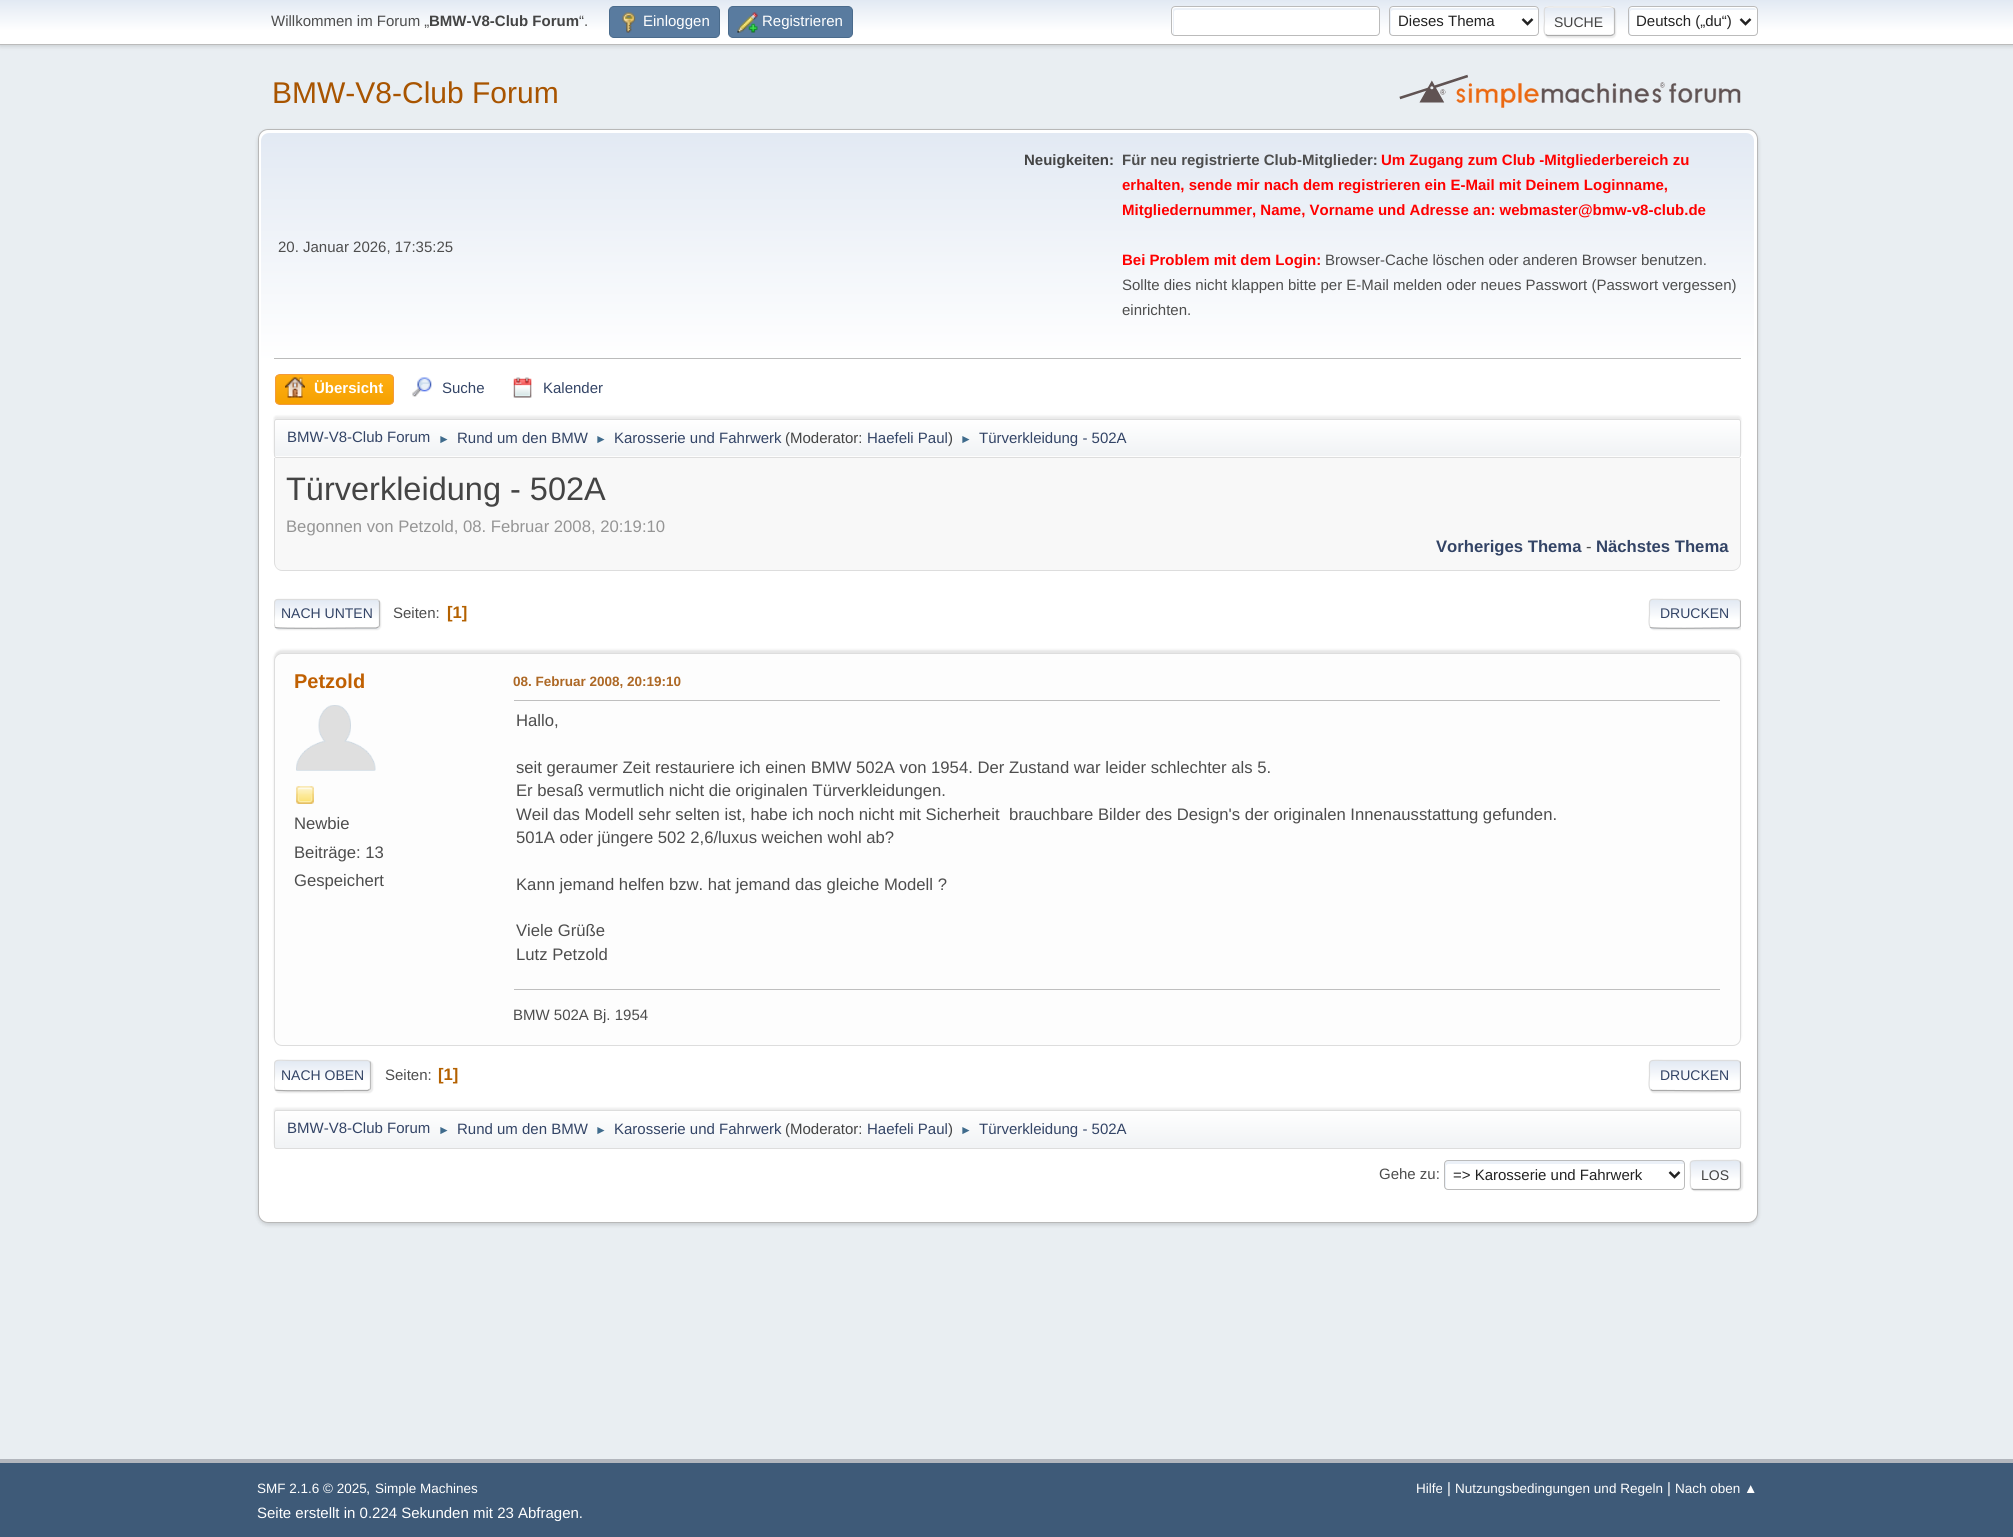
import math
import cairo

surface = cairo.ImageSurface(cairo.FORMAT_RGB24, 2013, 1537)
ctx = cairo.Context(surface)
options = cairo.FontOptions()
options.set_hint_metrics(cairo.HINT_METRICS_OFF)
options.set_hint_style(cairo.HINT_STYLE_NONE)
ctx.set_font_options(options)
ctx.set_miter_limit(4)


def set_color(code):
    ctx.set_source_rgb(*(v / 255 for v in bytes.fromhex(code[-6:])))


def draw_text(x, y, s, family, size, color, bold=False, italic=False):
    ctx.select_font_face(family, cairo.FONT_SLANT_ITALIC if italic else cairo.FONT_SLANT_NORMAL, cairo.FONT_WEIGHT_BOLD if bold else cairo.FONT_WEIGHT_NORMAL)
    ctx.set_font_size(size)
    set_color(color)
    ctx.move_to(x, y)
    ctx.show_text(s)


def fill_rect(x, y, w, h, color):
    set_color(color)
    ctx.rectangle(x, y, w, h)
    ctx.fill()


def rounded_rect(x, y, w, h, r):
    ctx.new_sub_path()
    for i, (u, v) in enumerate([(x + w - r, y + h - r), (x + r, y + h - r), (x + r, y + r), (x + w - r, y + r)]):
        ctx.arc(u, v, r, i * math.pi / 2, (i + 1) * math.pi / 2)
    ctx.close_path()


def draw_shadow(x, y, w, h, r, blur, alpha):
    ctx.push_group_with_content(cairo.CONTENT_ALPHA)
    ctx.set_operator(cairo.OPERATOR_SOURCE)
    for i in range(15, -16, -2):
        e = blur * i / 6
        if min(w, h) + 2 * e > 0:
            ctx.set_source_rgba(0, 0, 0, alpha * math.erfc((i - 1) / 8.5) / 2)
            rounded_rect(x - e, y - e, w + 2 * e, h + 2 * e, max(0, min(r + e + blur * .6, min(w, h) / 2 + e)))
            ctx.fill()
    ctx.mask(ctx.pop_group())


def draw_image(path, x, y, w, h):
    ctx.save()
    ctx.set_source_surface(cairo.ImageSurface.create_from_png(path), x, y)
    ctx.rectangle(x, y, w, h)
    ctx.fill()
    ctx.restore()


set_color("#e9eef2")
ctx.paint()
set_color("#000000")
draw_shadow(0, 1, 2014, 45, 0, 2.5, 0.16)
gradient = cairo.LinearGradient(1007, 0, 1007, 44)
gradient.add_color_stop_rgba(0, 0.886, 0.914, 0.953, 1)
gradient.add_color_stop_rgba(0.7, 1, 1, 1, 1)
ctx.set_source(gradient)
ctx.rectangle(0, 0, 2013, 44)
ctx.fill()
fill_rect(0, 44, 2013, 1, "#bbbbbb")
draw_text(271, 26, "Willkommen im Forum „", "Liberation Sans", 15, "#4d4d4d")
draw_text(429, 26, "BMW-V8-Club Forum", "Liberation Sans", 15, "#444444", bold=True)
draw_text(579, 26, "“.", "Liberation Sans", 15, "#4d4d4d")
set_color("#597b9f")
rounded_rect(609.5, 6.5, 110, 31, 4.5)
ctx.fill_preserve()
set_color("#4a6b8c")
ctx.set_line_width(1)
ctx.stroke()
draw_image("assets/img1.png", 622, 12, 14, 21)
draw_text(643, 26, "Einloggen", "Liberation Sans", 15, "#ffffff")
set_color("#597b9f")
rounded_rect(728.5, 6.5, 124, 31, 4.5)
ctx.fill_preserve()
set_color("#4a6b8c")
ctx.stroke()
draw_image("assets/img2.png", 737, 12, 21, 21)
draw_text(762, 26, "Registrieren", "Liberation Sans", 15, "#ffffff")
rounded_rect(1171, 6, 209, 30, 4)
ctx.fill()
set_color("#ecf1f8")
ctx.new_path()
ctx.move_to(1176, 10)
ctx.line_to(1379, 10)
ctx.curve_to(1379, 9, 1378, 8, 1376, 8)
ctx.line_to(1176, 8)
ctx.curve_to(1174, 8, 1173, 9, 1173, 10)
ctx.line_to(1173, 32)
ctx.curve_to(1173, 33, 1173, 34, 1174, 35)
ctx.line_to(1174, 12)
ctx.curve_to(1174, 11, 1175, 10, 1176, 10)
ctx.close_path()
ctx.fill()
rounded_rect(1171.5, 6.5, 208, 29, 3.5)
set_color("#bbbbbb")
ctx.stroke()
set_color("#ffffff")
rounded_rect(1389, 6, 150, 30, 4)
ctx.fill()
set_color("#ecf1f8")
ctx.new_path()
ctx.move_to(1394, 10)
ctx.line_to(1536, 10)
ctx.line_to(1538, 10)
ctx.curve_to(1538, 9, 1537, 8, 1536, 8)
ctx.line_to(1392, 8)
ctx.curve_to(1391, 8, 1390, 9, 1390, 10)
ctx.line_to(1390, 32)
ctx.curve_to(1390, 33, 1390, 34, 1391, 35)
ctx.line_to(1391, 12)
ctx.curve_to(1391, 11, 1392, 10, 1394, 10)
ctx.close_path()
ctx.fill()
rounded_rect(1389.5, 6.5, 149, 29, 3.5)
set_color("#bbbbbb")
ctx.stroke()
ctx.new_path()
ctx.move_to(1522.5, 19)
ctx.line_to(1527.5, 24)
ctx.line_to(1532.5, 19)
set_color("#222222")
ctx.set_line_width(2.5)
ctx.stroke()
draw_text(1398, 26, "Dieses Thema", "Liberation Sans", 15, "#222222")
set_color("#dddddd")
draw_shadow(1545, 8, 71, 30, 4, 0.5, 0.57)
ctx.save()
rounded_rect(1544, 6, 71, 30, 4)
ctx.clip()
gradient = cairo.LinearGradient(1579, -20, 1579, 7.5)
gradient.add_color_stop_rgba(0, 0.886, 0.914, 0.953, 1)
gradient.add_color_stop_rgba(0.7, 1, 1, 1, 1)
ctx.set_source(gradient)
ctx.rectangle(1544, 6, 71, 2)
ctx.fill()
gradient = cairo.LinearGradient(1579, 7.5, 1579, 35)
gradient.add_color_stop_rgba(0, 0.886, 0.914, 0.953, 1)
gradient.add_color_stop_rgba(0.7, 1, 1, 1, 1)
ctx.set_source(gradient)
ctx.rectangle(1544, 8, 71, 27)
ctx.fill()
ctx.restore()
ctx.new_path()
ctx.move_to(1613.5, 8)
ctx.curve_to(1614, 8.5, 1614.5, 9, 1614.5, 10)
ctx.line_to(1614.5, 32.5)
ctx.curve_to(1614.5, 33.5, 1614, 34, 1613.5, 34.5)
set_color("#bbbbbb")
ctx.set_line_width(1.2)
ctx.stroke()
ctx.new_path()
ctx.move_to(1613.5, 34.5)
ctx.line_to(1611, 35.5)
ctx.line_to(1547.5, 35.5)
ctx.line_to(1545.5, 34.5)
set_color("#aaaaaa")
ctx.stroke()
ctx.new_path()
ctx.move_to(1545.5, 34.5)
ctx.curve_to(1543, 32.5, 1544.5, 24, 1544.5, 21)
ctx.curve_to(1544.5, 5, 1541.5, 7, 1558, 7)
ctx.line_to(1600.5, 7)
ctx.curve_to(1600.5, 7, 1611, 5.5, 1613.5, 8)
set_color("#dddddd")
ctx.stroke()
draw_text(1554, 27, "SUCHE", "Liberation Sans", 14, "#444444")
set_color("#ffffff")
rounded_rect(1628, 6, 130, 30, 4)
ctx.fill()
set_color("#ecf1f8")
ctx.new_path()
ctx.move_to(1632, 10)
ctx.line_to(1756, 10)
ctx.curve_to(1756, 9, 1755, 8, 1754, 8)
ctx.line_to(1632, 8)
ctx.curve_to(1630, 8, 1629, 9, 1629, 10)
ctx.line_to(1629, 32)
ctx.curve_to(1629, 33, 1629, 34, 1630, 35)
ctx.line_to(1630, 12)
ctx.curve_to(1630, 11, 1631, 10, 1632, 10)
ctx.close_path()
ctx.fill()
rounded_rect(1628.5, 6.5, 129, 29, 3.5)
set_color("#bbbbbb")
ctx.set_line_width(1)
ctx.stroke()
ctx.new_path()
ctx.move_to(1740.5, 19)
ctx.line_to(1745.5, 24)
ctx.line_to(1750.5, 19)
set_color("#222222")
ctx.set_line_width(2.5)
ctx.stroke()
draw_text(1636, 26, "Deutsch („du“)", "Liberation Sans", 15, "#222222")
draw_text(272, 103, "BMW-V8-Club Forum", "Liberation Sans", 30, "#a85400")
draw_image("assets/img3.png", 1399, 74, 342, 34)
set_color("#000000")
draw_shadow(258, 131, 1500, 1094, 10, 2, 0.14)
set_color("#ffffff")
rounded_rect(258.5, 129.5, 1499, 1093, 9.5)
ctx.fill_preserve()
set_color("#b8b8b8")
ctx.set_line_width(1)
ctx.stroke()
gradient = cairo.LinearGradient(1008, 132, 1008, 460)
gradient.add_color_stop_rgba(0, 0.886, 0.914, 0.953, 1)
gradient.add_color_stop_rgba(0.7, 1, 1, 1, 1)
ctx.set_source(gradient)
ctx.new_path()
ctx.move_to(269, 133)
ctx.line_to(1746, 133)
ctx.curve_to(1750.5, 133, 1754, 136.5, 1754, 141)
ctx.line_to(1754, 460)
ctx.line_to(261, 460)
ctx.line_to(261, 141)
ctx.curve_to(261, 136.5, 264.5, 133, 269, 133)
ctx.close_path()
ctx.fill()
fill_rect(274, 358, 1467, 1, "#bbbbbb")
draw_text(278, 252, "20. Januar 2026, 17:35:25", "Liberation Sans", 15, "#4d4d4d")
draw_text(1024, 165, "Neuigkeiten:", "Liberation Sans", 15, "#444444", bold=True)
draw_text(1122, 165, "Für neu registrierte Club-Mitglieder:", "Liberation Sans", 15, "#4d4d4d", bold=True)
draw_text(1381, 165, "Um Zugang zum Club -Mitgliederbereich zu", "Liberation Sans", 15, "#ff0000", bold=True)
draw_text(1122, 190, "erhalten, sende mir nach dem registrieren ein E-Mail mit Deinem Loginname,", "Liberation Sans", 15, "#ff0000", bold=True)
draw_text(1122, 215, "Mitgliedernummer, Name, Vorname und Adresse an: webmaster@bmw-v8-club.de", "Liberation Sans", 15, "#ff0000", bold=True)
draw_text(1122, 265, "Bei Problem mit dem Login:", "Liberation Sans", 15, "#ff0000", bold=True)
draw_text(1325, 265, "Browser-Cache löschen oder anderen Browser benutzen.", "Liberation Sans", 15, "#4d4d4d")
draw_text(1122, 290, "Sollte dies nicht klappen bitte per E-Mail melden oder neues Passwort (Passwort vergessen)", "Liberation Sans", 15, "#4d4d4d")
draw_text(1122, 315, "einrichten.", "Liberation Sans", 15, "#4d4d4d")
ctx.save()
rounded_rect(275, 374, 119, 31, 5)
ctx.clip()
gradient = cairo.LinearGradient(334, 375, 334, 404)
gradient.add_color_stop_rgba(0, 1, 0.682, 0.078, 1)
gradient.add_color_stop_rgba(1, 0.961, 0.631, 0, 1)
ctx.set_source(gradient)
ctx.rectangle(275, 375, 119, 29)
ctx.fill()
ctx.restore()
rounded_rect(275.5, 374.5, 118, 30, 4.5)
set_color("#f49a3a")
ctx.stroke()
draw_image("assets/img4.png", 285, 377, 20, 21)
draw_text(314, 393, "Übersicht", "Liberation Sans", 15, "#ffffff", bold=True)
draw_image("assets/img5.png", 412, 377, 20, 20)
draw_text(442, 393, "Suche", "Liberation Sans", 15, "#334466")
draw_image("assets/img6.png", 513, 377, 19, 21)
draw_text(543, 393, "Kalender", "Liberation Sans", 15, "#334466")
set_color("#000000")
draw_shadow(274, 416, 1467, 39, 2.5, 1, 0.08)
gradient = cairo.LinearGradient(1008, 420, 1008, 456)
gradient.add_color_stop_rgba(0, 1, 1, 1, 1)
gradient.add_color_stop_rgba(0.95, 0.945, 0.953, 0.961, 1)
ctx.set_source(gradient)
ctx.rectangle(274, 420, 1467, 36)
ctx.fill()
rounded_rect(274.5, 419.5, 1466, 38, 2)
set_color("#dddddd")
ctx.stroke()
draw_text(287, 442, "BMW-V8-Club Forum", "Liberation Sans", 15, "#334466")
draw_text(438, 443, "►", "Liberation Sans", 12, "#3f6b8c")
draw_text(457, 443, "Rund um den BMW", "Liberation Sans", 15, "#334466")
draw_text(595, 443, "►", "Liberation Sans", 12, "#3f6b8c")
draw_text(614, 443, "Karosserie und Fahrwerk", "Liberation Sans", 15, "#334466")
draw_text(785, 443, "(Moderator:", "Liberation Sans", 15, "#444444")
draw_text(867, 443, "Haefeli Paul", "Liberation Sans", 15, "#334466")
draw_text(948, 443, ")", "Liberation Sans", 15, "#444444")
draw_text(960, 443, "►", "Liberation Sans", 12, "#3f6b8c")
draw_text(979, 443, "Türverkleidung - 502A", "Liberation Sans", 15, "#334466")
set_color("#f8f8f8")
ctx.new_path()
ctx.move_to(274, 458)
ctx.line_to(1741, 458)
ctx.line_to(1741, 562)
ctx.curve_to(1741, 567, 1737, 571, 1732, 571)
ctx.line_to(283, 571)
ctx.curve_to(278, 571, 274, 567, 274, 562)
ctx.close_path()
ctx.fill()
set_color("#dddddd")
ctx.set_fill_rule(cairo.FILL_RULE_EVEN_ODD)
ctx.new_path()
ctx.move_to(274, 458)
ctx.line_to(1741, 458)
ctx.line_to(1741, 562)
ctx.curve_to(1741, 567, 1737, 571, 1732, 571)
ctx.line_to(282, 571)
ctx.curve_to(278, 571, 274, 567, 274, 562)
ctx.close_path()
ctx.move_to(275, 458)
ctx.line_to(1740, 458)
ctx.line_to(1740, 562)
ctx.curve_to(1740, 567, 1737, 570, 1732, 570)
ctx.line_to(282, 570)
ctx.curve_to(278, 570, 275, 567, 275, 562)
ctx.close_path()
ctx.fill()
draw_text(286, 500, "Türverkleidung - 502A", "Liberation Sans", 32.5, "#444444")
draw_text(286, 532, "Begonnen von Petzold, 08. Februar 2008, 20:19:10", "Liberation Sans", 16.67, "#959595")
draw_text(1436, 552, "Vorheriges Thema", "Liberation Sans", 16.67, "#334466", bold=True)
draw_text(1586, 552, "-", "Liberation Sans", 16.67, "#4d4d4d")
draw_text(1596, 552, "Nächstes Thema", "Liberation Sans", 16.67, "#334466", bold=True)
set_color("#dddddd")
draw_shadow(275, 600, 106, 30, 4, 0.5, 0.57)
ctx.save()
ctx.set_fill_rule(cairo.FILL_RULE_WINDING)
rounded_rect(274, 599, 106, 30, 4)
ctx.clip()
gradient = cairo.LinearGradient(327, 600, 327, 628)
gradient.add_color_stop_rgba(0, 0.886, 0.914, 0.953, 1)
gradient.add_color_stop_rgba(0.7, 1, 1, 1, 1)
ctx.set_source(gradient)
ctx.rectangle(274, 600, 106, 28)
ctx.fill()
gradient = cairo.LinearGradient(327, 628, 327, 655)
gradient.add_color_stop_rgba(0, 0.886, 0.914, 0.953, 1)
gradient.add_color_stop_rgba(0.7, 1, 1, 1, 1)
ctx.set_source(gradient)
ctx.rectangle(274, 628, 106, 1)
ctx.fill()
ctx.restore()
ctx.new_path()
ctx.move_to(378.5, 600.5)
ctx.curve_to(379, 601, 379.5, 601.5, 379.5, 602.5)
ctx.line_to(379.5, 625)
ctx.curve_to(379.5, 626, 379, 626.5, 378.5, 627)
set_color("#bbbbbb")
ctx.set_line_width(1.2)
ctx.stroke()
ctx.new_path()
ctx.move_to(378.5, 627)
ctx.line_to(376, 628)
ctx.line_to(360, 628)
ctx.curve_to(351, 628, 277.5, 629, 275.5, 627.5)
ctx.line_to(275.5, 627)
set_color("#aaaaaa")
ctx.stroke()
ctx.save()
ctx.set_fill_rule(cairo.FILL_RULE_WINDING)
ctx.rectangle(274, 590, 1467, 48)
ctx.clip()
ctx.new_path()
ctx.move_to(275.5, 627)
ctx.curve_to(273, 625, 274.5, 616.5, 274.5, 614)
ctx.line_to(274.5, 606)
ctx.curve_to(274.5, 604, 274, 599.5, 277.5, 599.5)
ctx.line_to(360, 599.5)
ctx.line_to(377.5, 599.5)
ctx.line_to(378.5, 600.5)
set_color("#dddddd")
ctx.stroke()
ctx.restore()
draw_text(281, 618, "NACH UNTEN", "Liberation Sans", 14, "#334466")
draw_text(393, 618, "Seiten:", "Liberation Sans", 15, "#4d4d4d")
draw_text(447, 618, "[1]", "Liberation Sans", 16.67, "#b46100", bold=True)
ctx.save()
ctx.set_fill_rule(cairo.FILL_RULE_WINDING)
ctx.rectangle(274, 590, 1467, 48)
ctx.clip()
set_color("#dddddd")
draw_shadow(1650, 600, 93, 30, 4, 0.5, 0.57)
ctx.restore()
ctx.save()
ctx.set_fill_rule(cairo.FILL_RULE_WINDING)
rounded_rect(1649, 599, 92, 30, 4)
ctx.clip()
gradient = cairo.LinearGradient(1695, 600, 1695, 628)
gradient.add_color_stop_rgba(0, 0.886, 0.914, 0.953, 1)
gradient.add_color_stop_rgba(0.7, 1, 1, 1, 1)
ctx.set_source(gradient)
ctx.rectangle(1649, 600, 92, 28)
ctx.fill()
gradient = cairo.LinearGradient(1695, 628, 1695, 655)
gradient.add_color_stop_rgba(0, 0.886, 0.914, 0.953, 1)
gradient.add_color_stop_rgba(0.7, 1, 1, 1, 1)
ctx.set_source(gradient)
ctx.rectangle(1649, 628, 92, 1)
ctx.fill()
ctx.restore()
ctx.save()
ctx.set_fill_rule(cairo.FILL_RULE_WINDING)
ctx.rectangle(274, 590, 1467, 48)
ctx.clip()
ctx.new_path()
ctx.move_to(1739.5, 600.5)
ctx.curve_to(1740.5, 601, 1740.5, 601.5, 1740.5, 602.5)
ctx.line_to(1740.5, 625)
ctx.curve_to(1740.5, 626, 1740.5, 626.5, 1739.5, 627)
set_color("#bbbbbb")
ctx.stroke()
ctx.restore()
ctx.new_path()
ctx.move_to(1739.5, 627)
ctx.line_to(1737.5, 628)
ctx.line_to(1723.5, 628)
ctx.curve_to(1715.5, 628, 1652.5, 629, 1650.5, 627.5)
ctx.line_to(1650.5, 627)
set_color("#aaaaaa")
ctx.stroke()
ctx.new_path()
ctx.move_to(1650.5, 627)
ctx.curve_to(1648, 625, 1649.5, 616.5, 1649.5, 614)
ctx.curve_to(1649.5, 596, 1647, 599.5, 1666.5, 599.5)
ctx.line_to(1737.5, 599.5)
ctx.line_to(1739.5, 600.5)
set_color("#dddddd")
ctx.stroke()
draw_text(1660, 618, "DRUCKEN", "Liberation Sans", 14, "#334466")
set_color("#000000")
draw_shadow(274, 650, 1467, 394, 8, 1, 0.1)
set_color("#fdfdfd")
rounded_rect(274.5, 653.5, 1466, 392, 7.5)
ctx.fill_preserve()
set_color("#dddddd")
ctx.set_line_width(1)
ctx.stroke()
draw_text(294, 688, "Petzold", "Liberation Sans", 20, "#c06002", bold=True)
draw_image("assets/img7.png", 296, 705, 80, 66)
draw_image("assets/img8.png", 296, 786, 18, 18)
draw_text(294, 829, "Newbie", "Liberation Sans", 16.67, "#4d4d4d")
draw_text(294, 858, "Beiträge: 13", "Liberation Sans", 16.67, "#4d4d4d")
draw_text(294, 886, "Gespeichert", "Liberation Sans", 16.67, "#4d4d4d")
draw_text(513, 686, "08. Februar 2008, 20:19:10", "Liberation Sans", 13.5, "#ad6825", bold=True)
fill_rect(514, 700, 1206, 1, "#bfbfbf")
draw_text(516, 726, "Hallo,", "Liberation Sans", 16.67, "#4d4d4d")
draw_text(516, 773, "seit geraumer Zeit restauriere ich einen BMW 502A von 1954. Der Zustand war leider schlechter als 5.", "Liberation Sans", 16.67, "#4d4d4d")
draw_text(516, 796, "Er besaß vermutlich nicht die originalen Türverkleidungen.", "Liberation Sans", 16.67, "#4d4d4d")
draw_text(516, 820, "Weil das Modell sehr selten ist, habe ich noch nicht mit Sicherheit  brauchbare Bilder des Design's der originalen Innenausstattung gefunden.", "Liberation Sans", 16.67, "#4d4d4d")
draw_text(516, 843, "501A oder jüngere 502 2,6/luxus weichen wohl ab?", "Liberation Sans", 16.67, "#4d4d4d")
draw_text(516, 890, "Kann jemand helfen bzw. hat jemand das gleiche Modell ?", "Liberation Sans", 16.67, "#4d4d4d")
draw_text(516, 936, "Viele Grüße", "Liberation Sans", 16.67, "#4d4d4d")
draw_text(516, 960, "Lutz Petzold", "Liberation Sans", 16.67, "#4d4d4d")
fill_rect(514, 989, 1206, 1, "#bfbfbf")
draw_text(513, 1020, "BMW 502A Bj. 1954", "Liberation Sans", 15, "#4d4d4d")
set_color("#dddddd")
draw_shadow(275, 1061, 98, 32, 4, 0.5, 0.57)
ctx.save()
ctx.set_fill_rule(cairo.FILL_RULE_WINDING)
rounded_rect(274, 1060, 97, 31, 4)
ctx.clip()
gradient = cairo.LinearGradient(323, 1061, 323, 1090)
gradient.add_color_stop_rgba(0, 0.886, 0.914, 0.953, 1)
gradient.add_color_stop_rgba(0.7, 1, 1, 1, 1)
ctx.set_source(gradient)
ctx.rectangle(274, 1061, 97, 29)
ctx.fill()
ctx.restore()
ctx.new_path()
ctx.move_to(369.5, 1061.5)
ctx.curve_to(370.5, 1062, 370.5, 1063, 370.5, 1064)
ctx.line_to(370.5, 1087.5)
ctx.curve_to(370.5, 1088.5, 370.5, 1089, 369.5, 1089.5)
set_color("#bbbbbb")
ctx.set_line_width(1.2)
ctx.stroke()
ctx.new_path()
ctx.move_to(369.5, 1089.5)
ctx.line_to(367.5, 1090.5)
ctx.line_to(352.5, 1090.5)
ctx.curve_to(344, 1090.5, 277.5, 1091.5, 275.5, 1090)
ctx.line_to(275.5, 1089.5)
set_color("#aaaaaa")
ctx.stroke()
ctx.save()
ctx.set_fill_rule(cairo.FILL_RULE_WINDING)
ctx.rectangle(274, 1051, 1467, 49)
ctx.clip()
ctx.new_path()
ctx.move_to(275.5, 1089.5)
ctx.curve_to(273, 1087.5, 274.5, 1078.5, 274.5, 1075.5)
ctx.curve_to(274.5, 1057, 272, 1060.5, 292.5, 1060.5)
ctx.line_to(367.5, 1060.5)
ctx.line_to(369.5, 1061.5)
set_color("#dddddd")
ctx.stroke()
ctx.restore()
draw_text(281, 1080, "NACH OBEN", "Liberation Sans", 14, "#334466")
draw_text(385, 1080, "Seiten:", "Liberation Sans", 15, "#4d4d4d")
draw_text(438, 1080, "[1]", "Liberation Sans", 16.67, "#b46100", bold=True)
ctx.save()
ctx.set_fill_rule(cairo.FILL_RULE_WINDING)
ctx.rectangle(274, 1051, 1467, 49)
ctx.clip()
set_color("#dddddd")
draw_shadow(1650, 1061, 93, 32, 4, 0.5, 0.57)
ctx.restore()
ctx.save()
ctx.set_fill_rule(cairo.FILL_RULE_WINDING)
rounded_rect(1649, 1060, 92, 31, 4)
ctx.clip()
gradient = cairo.LinearGradient(1695, 1061, 1695, 1090)
gradient.add_color_stop_rgba(0, 0.886, 0.914, 0.953, 1)
gradient.add_color_stop_rgba(0.7, 1, 1, 1, 1)
ctx.set_source(gradient)
ctx.rectangle(1649, 1061, 92, 29)
ctx.fill()
ctx.restore()
ctx.save()
ctx.set_fill_rule(cairo.FILL_RULE_WINDING)
ctx.rectangle(274, 1051, 1467, 49)
ctx.clip()
ctx.new_path()
ctx.move_to(1739.5, 1061.5)
ctx.curve_to(1740.5, 1062, 1740.5, 1063, 1740.5, 1064)
ctx.line_to(1740.5, 1087.5)
ctx.curve_to(1740.5, 1088.5, 1740.5, 1089, 1739.5, 1089.5)
set_color("#bbbbbb")
ctx.stroke()
ctx.restore()
ctx.new_path()
ctx.move_to(1739.5, 1089.5)
ctx.line_to(1739.5, 1090)
ctx.curve_to(1737.5, 1091.5, 1674.5, 1090.5, 1666.5, 1090.5)
ctx.line_to(1652.5, 1090.5)
ctx.line_to(1650.5, 1089.5)
set_color("#aaaaaa")
ctx.stroke()
ctx.new_path()
ctx.move_to(1650.5, 1089.5)
ctx.curve_to(1648, 1087.5, 1649.5, 1078.5, 1649.5, 1075.5)
ctx.curve_to(1649.5, 1057.5, 1647, 1060.5, 1666.5, 1060.5)
ctx.line_to(1737.5, 1060.5)
ctx.line_to(1739.5, 1061.5)
set_color("#dddddd")
ctx.stroke()
draw_text(1660, 1080, "DRUCKEN", "Liberation Sans", 14, "#334466")
set_color("#000000")
draw_shadow(274, 1108, 1467, 38, 2.5, 1, 0.08)
ctx.save()
ctx.set_fill_rule(cairo.FILL_RULE_WINDING)
rounded_rect(274, 1110, 1467, 39, 2.5)
ctx.clip()
gradient = cairo.LinearGradient(1008, 1111, 1008, 1148)
gradient.add_color_stop_rgba(0, 1, 1, 1, 1)
gradient.add_color_stop_rgba(0.95, 0.945, 0.953, 0.961, 1)
ctx.set_source(gradient)
ctx.rectangle(274, 1111, 1467, 37)
ctx.fill()
ctx.restore()
rounded_rect(274.5, 1110.5, 1466, 38, 2)
set_color("#dddddd")
ctx.set_line_width(1)
ctx.stroke()
draw_text(287, 1133, "BMW-V8-Club Forum", "Liberation Sans", 15, "#334466")
draw_text(438, 1134, "►", "Liberation Sans", 12, "#3f6b8c")
draw_text(457, 1134, "Rund um den BMW", "Liberation Sans", 15, "#334466")
draw_text(595, 1134, "►", "Liberation Sans", 12, "#3f6b8c")
draw_text(614, 1134, "Karosserie und Fahrwerk", "Liberation Sans", 15, "#334466")
draw_text(785, 1134, "(Moderator:", "Liberation Sans", 15, "#444444")
draw_text(867, 1134, "Haefeli Paul", "Liberation Sans", 15, "#334466")
draw_text(948, 1134, ")", "Liberation Sans", 15, "#444444")
draw_text(960, 1134, "►", "Liberation Sans", 12, "#3f6b8c")
draw_text(979, 1134, "Türverkleidung - 502A", "Liberation Sans", 15, "#334466")
draw_text(1379, 1179, "Gehe zu:", "Liberation Sans", 15, "#4d4d4d")
set_color("#ecf1f8")
ctx.set_fill_rule(cairo.FILL_RULE_WINDING)
ctx.new_path()
ctx.move_to(1449, 1164)
ctx.line_to(1682, 1164)
ctx.line_to(1684, 1164)
ctx.curve_to(1684, 1162, 1683, 1161, 1682, 1161)
ctx.line_to(1448, 1161)
ctx.curve_to(1446, 1161, 1445, 1162, 1445, 1164)
ctx.line_to(1445, 1186)
ctx.curve_to(1445, 1187, 1445, 1188, 1446, 1189)
ctx.line_to(1446, 1166)
ctx.curve_to(1446, 1165, 1447, 1164, 1449, 1164)
ctx.close_path()
ctx.fill()
rounded_rect(1444.5, 1160.5, 240, 29, 3.5)
set_color("#bbbbbb")
ctx.stroke()
ctx.new_path()
ctx.move_to(1669.5, 1172)
ctx.line_to(1674.5, 1177)
ctx.line_to(1679.5, 1172)
set_color("#222222")
ctx.set_line_width(2.5)
ctx.stroke()
draw_text(1453, 1180, "=> Karosserie und Fahrwerk", "Liberation Sans", 15, "#222222")
set_color("#dddddd")
draw_shadow(1691, 1161, 52, 30, 4, 0.5, 0.57)
ctx.save()
rounded_rect(1690, 1160, 51, 30, 4)
ctx.clip()
gradient = cairo.LinearGradient(1716, 1161, 1716, 1189)
gradient.add_color_stop_rgba(0, 0.886, 0.914, 0.953, 1)
gradient.add_color_stop_rgba(0.7, 1, 1, 1, 1)
ctx.set_source(gradient)
ctx.rectangle(1690, 1161, 51, 28)
ctx.fill()
ctx.restore()
ctx.new_path()
ctx.move_to(1739.5, 1161.5)
ctx.curve_to(1740.5, 1162, 1740.5, 1163, 1740.5, 1164)
ctx.line_to(1740.5, 1186)
ctx.curve_to(1740.5, 1187, 1740.5, 1188, 1739.5, 1188.5)
set_color("#bbbbbb")
ctx.set_line_width(1.2)
ctx.stroke()
ctx.new_path()
ctx.move_to(1739.5, 1188.5)
ctx.line_to(1738, 1189.5)
ctx.line_to(1693.5, 1189.5)
ctx.line_to(1691.5, 1188.5)
set_color("#aaaaaa")
ctx.stroke()
ctx.new_path()
ctx.move_to(1691.5, 1188.5)
ctx.curve_to(1689.5, 1186.5, 1690.5, 1177.5, 1690.5, 1175)
ctx.curve_to(1690.5, 1160.5, 1687.5, 1160.5, 1701, 1160.5)
ctx.line_to(1730, 1160.5)
ctx.curve_to(1731, 1160.5, 1737.5, 1159.5, 1739.5, 1161.5)
set_color("#dddddd")
ctx.stroke()
draw_text(1701, 1180, "LOS", "Liberation Sans", 14, "#444444")
fill_rect(0, 1463, 2013, 74, "#3e5a78")
fill_rect(0, 1459, 2013, 4, "#b2b6bd")
draw_text(257, 1493, "SMF 2.1.6 © 2025", "Liberation Sans", 13.5, "#ffffff")
draw_text(366, 1493, ",", "Liberation Sans", 15, "#ffffff")
draw_text(375, 1493, "Simple Machines", "Liberation Sans", 13.5, "#ffffff")
draw_text(1416, 1493, "Hilfe", "Liberation Sans", 13.5, "#ffffff")
draw_text(1447, 1493, "|", "Liberation Sans", 15, "#ffffff")
draw_text(1455, 1493, "Nutzungsbedingungen und Regeln", "Liberation Sans", 13.5, "#ffffff")
draw_text(1667, 1493, "|", "Liberation Sans", 15, "#ffffff")
draw_text(1675, 1493, "Nach oben ▲", "Liberation Sans", 13.5, "#ffffff")
draw_text(257, 1518, "Seite erstellt in 0.224 Sekunden mit 23 Abfragen.", "Liberation Sans", 15, "#ffffff")
surface.write_to_png("output.png")
